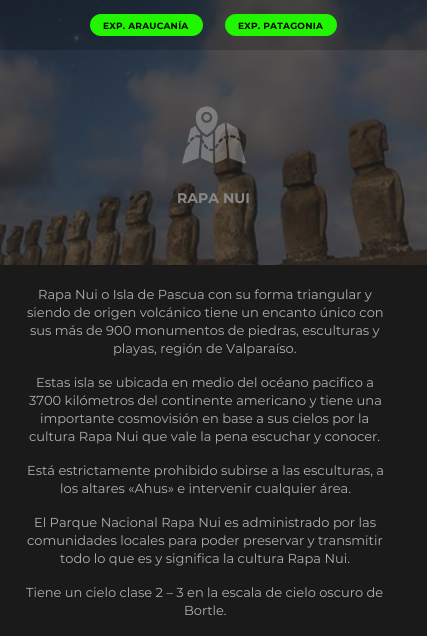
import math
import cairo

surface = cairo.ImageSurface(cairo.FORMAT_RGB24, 427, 636)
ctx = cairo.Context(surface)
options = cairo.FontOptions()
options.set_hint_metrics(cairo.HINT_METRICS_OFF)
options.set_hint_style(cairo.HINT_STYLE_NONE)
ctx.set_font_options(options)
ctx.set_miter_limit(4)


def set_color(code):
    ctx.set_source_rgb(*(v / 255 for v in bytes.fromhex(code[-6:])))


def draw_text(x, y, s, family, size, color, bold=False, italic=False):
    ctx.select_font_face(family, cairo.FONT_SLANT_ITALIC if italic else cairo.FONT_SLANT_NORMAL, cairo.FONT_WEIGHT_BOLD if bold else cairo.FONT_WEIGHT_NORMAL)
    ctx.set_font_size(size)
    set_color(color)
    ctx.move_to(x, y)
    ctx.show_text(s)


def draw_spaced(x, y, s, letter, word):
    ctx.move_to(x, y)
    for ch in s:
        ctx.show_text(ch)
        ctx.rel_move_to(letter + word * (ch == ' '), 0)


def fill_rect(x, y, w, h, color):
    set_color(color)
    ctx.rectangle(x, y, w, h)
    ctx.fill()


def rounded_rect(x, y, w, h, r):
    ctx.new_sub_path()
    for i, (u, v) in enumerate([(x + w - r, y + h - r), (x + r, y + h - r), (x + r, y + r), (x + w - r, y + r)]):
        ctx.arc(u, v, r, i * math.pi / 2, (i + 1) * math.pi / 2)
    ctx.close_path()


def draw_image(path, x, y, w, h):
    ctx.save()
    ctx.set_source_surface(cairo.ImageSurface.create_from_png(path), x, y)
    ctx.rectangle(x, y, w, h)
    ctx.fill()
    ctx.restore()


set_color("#ffffff")
ctx.paint()
draw_image("assets/img1.png", 0, 0, 427, 265)
ctx.set_source_rgba(0, 0, 0, 0.2)
ctx.rectangle(0, 0, 427, 50)
ctx.fill()
set_color("#21f500")
rounded_rect(90, 14, 113, 22, 11)
ctx.fill()
ctx.select_font_face("Montserrat", cairo.FONT_SLANT_NORMAL, cairo.FONT_WEIGHT_BOLD)
ctx.set_font_size(9)
set_color("#000000")
draw_spaced(103, 29, "EXP. ARAUCANÍA", 0.25, 0)
set_color("#21f500")
rounded_rect(225, 14, 112, 22, 11)
ctx.fill()
set_color("#000000")
draw_spaced(238, 29, "EXP. PATAGONIA", 0.25, 0)
draw_image("assets/img2.png", 182, 106, 64, 58)
draw_text(177, 203, "RAPA NUI", "Montserrat", 14, "#898683", bold=True)
fill_rect(0, 265, 427, 371, "#1a1a1a")
draw_text(38, 299, "Rapa Nui o Isla de Pascua con su forma triangular y", "Montserrat", 13, "#afafaf")
draw_text(27, 317, "siendo de origen volcánico tiene un encanto único con", "Montserrat", 13, "#afafaf")
draw_text(30, 335, "sus más de 900 monumentos de piedras, esculturas y", "Montserrat", 13, "#afafaf")
draw_text(113, 353, "playas, región de Valparaíso.", "Montserrat", 13, "#afafaf")
draw_text(36, 387, "Estas isla se ubicada en medio del océano pacifico a", "Montserrat", 13, "#afafaf")
draw_text(29, 405, "3700 kilómetros del continente americano y tiene una", "Montserrat", 13, "#afafaf")
draw_text(40, 423, "importante cosmovisión en base a sus cielos por la", "Montserrat", 13, "#afafaf")
draw_text(29, 441, "cultura Rapa Nui que vale la pena escuchar y conocer.", "Montserrat", 13, "#afafaf")
draw_text(27, 475, "Está estrictamente prohibido subirse a las esculturas, a", "Montserrat", 13, "#afafaf")
draw_text(60, 493, "los altares «Ahus» e intervenir cualquier área.", "Montserrat", 13, "#afafaf")
draw_text(34, 527, "El Parque Nacional Rapa Nui es administrado por las", "Montserrat", 13, "#afafaf")
draw_text(27, 545, "comunidades locales para poder preservar y transmitir", "Montserrat", 13, "#afafaf")
draw_text(60, 563, "todo lo que es y significa la cultura Rapa Nui.", "Montserrat", 13, "#afafaf")
draw_text(26, 597, "Tiene un cielo clase 2 – 3 en la escala de cielo oscuro de", "Montserrat", 13, "#afafaf")
draw_text(184, 615, "Bortle.", "Montserrat", 13, "#afafaf")
surface.write_to_png("output.png")
